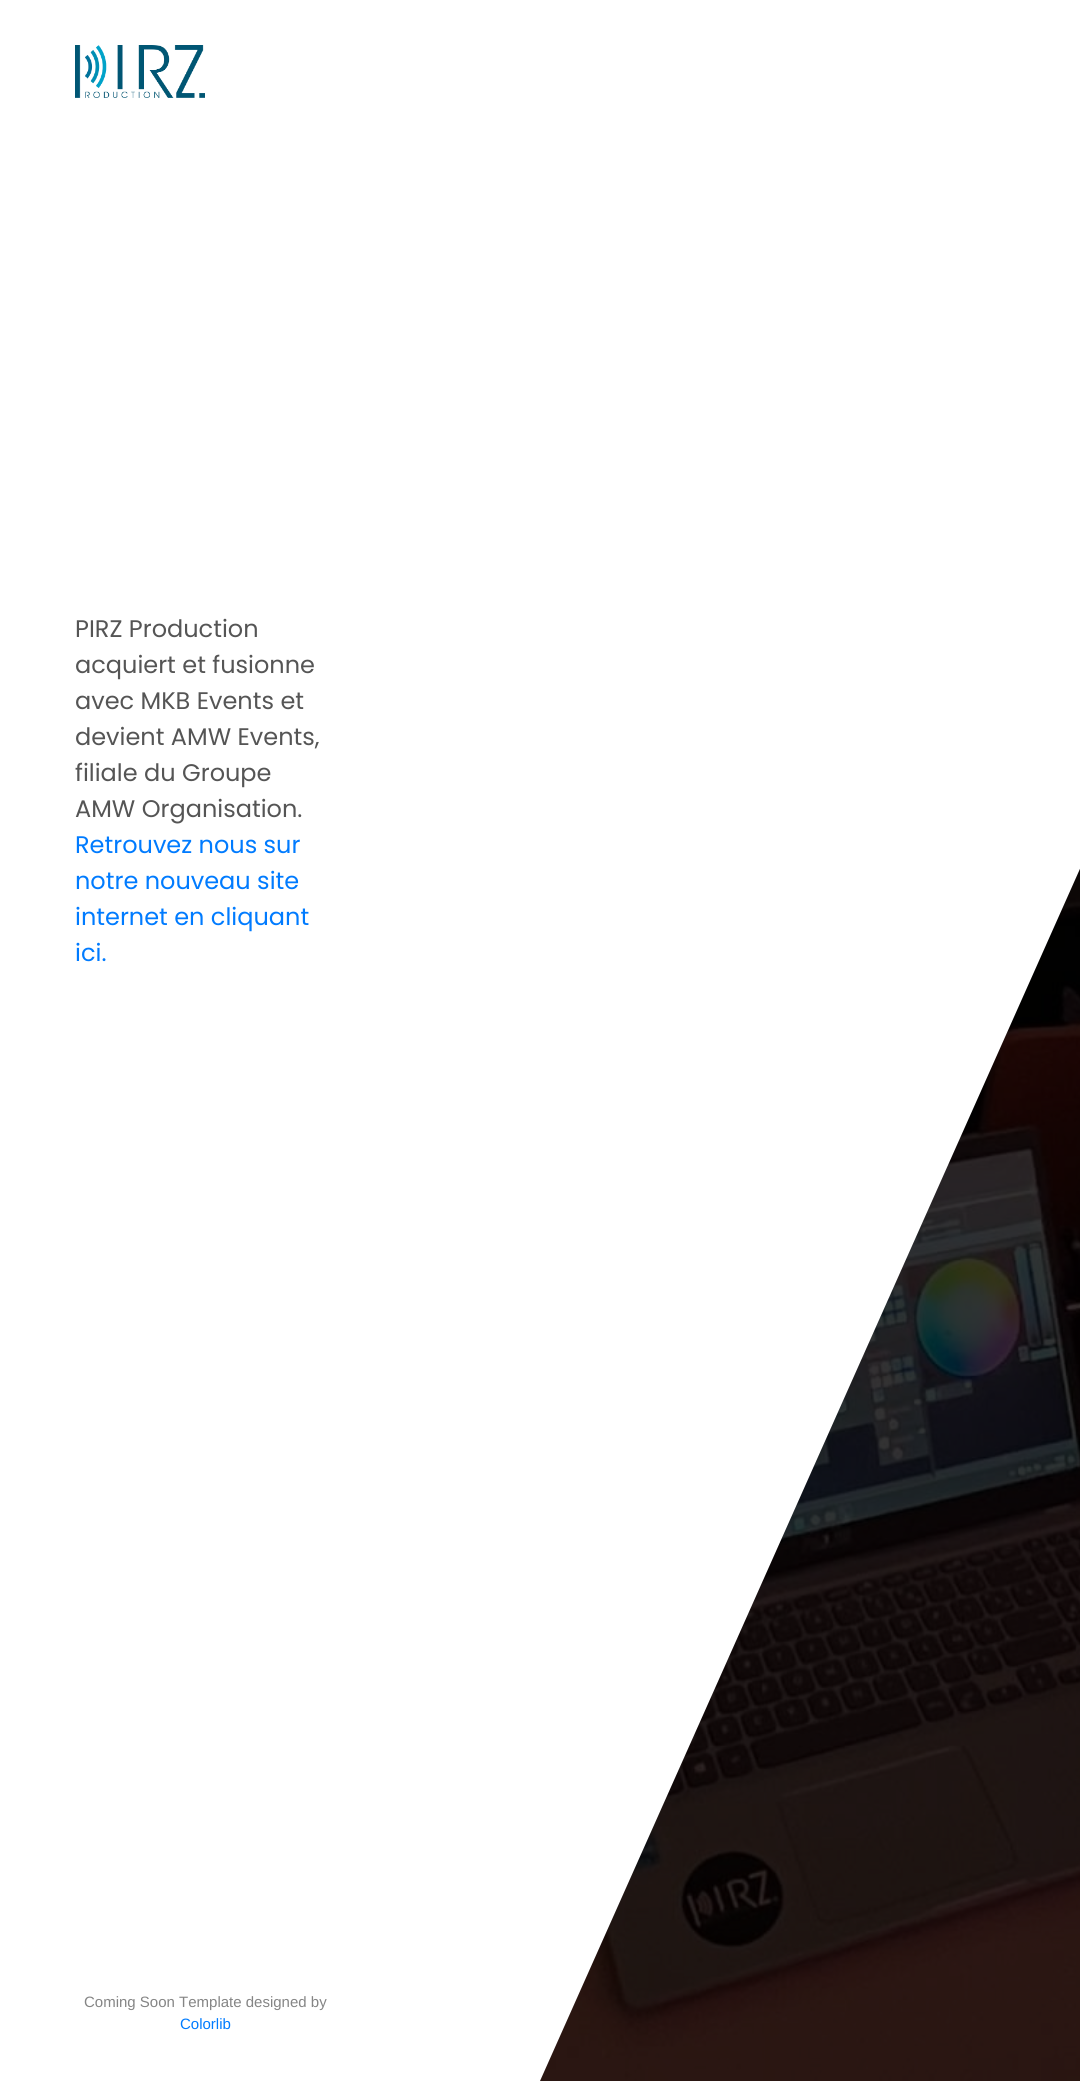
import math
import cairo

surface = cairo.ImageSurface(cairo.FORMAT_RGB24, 1080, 2081)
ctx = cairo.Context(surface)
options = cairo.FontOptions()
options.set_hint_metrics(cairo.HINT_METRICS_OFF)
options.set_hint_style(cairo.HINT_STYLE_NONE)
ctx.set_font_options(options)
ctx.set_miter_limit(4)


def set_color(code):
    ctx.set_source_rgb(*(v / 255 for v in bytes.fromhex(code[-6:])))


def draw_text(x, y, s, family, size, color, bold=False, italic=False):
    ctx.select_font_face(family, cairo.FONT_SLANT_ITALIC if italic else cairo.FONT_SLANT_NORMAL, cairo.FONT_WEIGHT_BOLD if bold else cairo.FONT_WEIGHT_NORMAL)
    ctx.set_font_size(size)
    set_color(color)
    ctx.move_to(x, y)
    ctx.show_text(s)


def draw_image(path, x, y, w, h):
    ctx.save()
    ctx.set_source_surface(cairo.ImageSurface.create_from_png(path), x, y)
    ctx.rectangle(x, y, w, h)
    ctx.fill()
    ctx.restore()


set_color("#ffffff")
ctx.paint()
draw_image("assets/img1.png", 75, 45, 130, 53)
draw_text(75, 637, "PIRZ Production", "Poppins", 24, "#555555")
draw_text(75, 673, "acquiert et fusionne", "Poppins", 24, "#555555")
draw_text(75, 709, "avec MKB Events et", "Poppins", 24, "#555555")
draw_text(75, 745, "devient AMW Events,", "Poppins", 24, "#555555")
draw_text(75, 781, "filiale du Groupe", "Poppins", 24, "#555555")
draw_text(75, 817, "AMW Organisation.", "Poppins", 24, "#555555")
draw_text(75, 853, "Retrouvez nous sur", "Poppins", 24, "#007bff")
draw_text(75, 889, "notre nouveau site", "Poppins", 24, "#007bff")
draw_text(75, 925, "internet en cliquant", "Poppins", 24, "#007bff")
draw_text(75, 961, "ici.", "Poppins", 24, "#007bff")
draw_text(84, 2007, "Coming Soon Template designed by", "Liberation Sans", 15, "#858585")
draw_text(180, 2029, "Colorlib", "Liberation Sans", 15, "#007bff")
draw_image("assets/img2.png", 540, 868, 540, 1213)
ctx.save()
ctx.rectangle(540, 0, 540, 2081)
ctx.clip()
set_color("#ffffff")
ctx.new_path()
ctx.move_to(-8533, 0)
ctx.line_to(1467, 0)
ctx.line_to(540, 2081)
ctx.line_to(-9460, 2081)
ctx.close_path()
ctx.fill()
ctx.restore()
surface.write_to_png("output.png")
